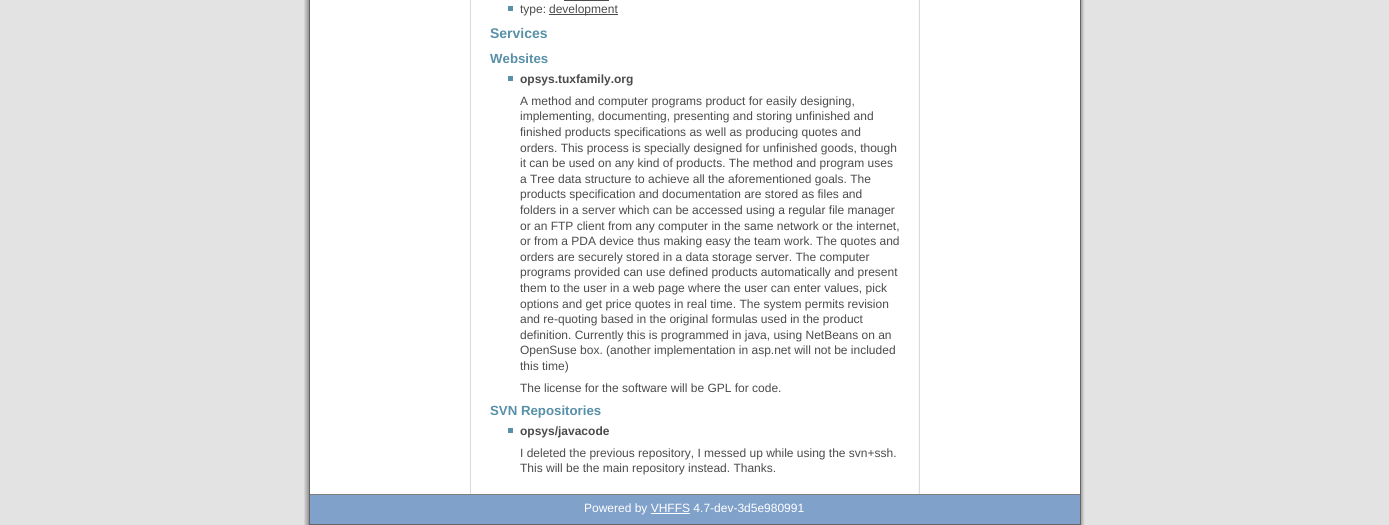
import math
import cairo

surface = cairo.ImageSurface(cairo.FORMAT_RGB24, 1389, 525)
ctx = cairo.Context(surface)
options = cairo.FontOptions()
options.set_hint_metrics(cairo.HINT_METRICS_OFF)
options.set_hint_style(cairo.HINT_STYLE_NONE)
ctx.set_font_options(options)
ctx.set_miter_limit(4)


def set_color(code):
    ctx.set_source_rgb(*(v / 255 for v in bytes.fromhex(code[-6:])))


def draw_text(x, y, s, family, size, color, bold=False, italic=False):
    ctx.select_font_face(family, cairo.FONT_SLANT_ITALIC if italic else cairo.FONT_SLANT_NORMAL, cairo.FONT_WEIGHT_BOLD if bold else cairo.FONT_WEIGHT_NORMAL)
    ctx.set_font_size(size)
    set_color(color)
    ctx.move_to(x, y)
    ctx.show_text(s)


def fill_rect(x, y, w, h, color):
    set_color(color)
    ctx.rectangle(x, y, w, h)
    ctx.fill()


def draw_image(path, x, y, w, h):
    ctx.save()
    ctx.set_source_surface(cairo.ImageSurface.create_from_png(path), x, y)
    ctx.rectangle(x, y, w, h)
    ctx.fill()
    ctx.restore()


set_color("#e3e3e3")
ctx.paint()
draw_image("assets/img1.png", 304, 0, 781, 525)
draw_image("assets/img2.png", 310, 0, 770, 494)
ctx.rectangle(309.5, -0.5, 771, 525)
set_color("#646464")
ctx.set_line_width(1)
ctx.stroke()
fill_rect(564, 0, 45, 1, "#4b4b4b")
fill_rect(508, 6, 5, 5, "#5890a8")
draw_text(520, 13, "type:", "Liberation Sans", 12, "#4b4b4b")
fill_rect(549, 14, 69, 1, "#4b4b4b")
draw_text(549, 13, "development", "Liberation Sans", 12, "#4b4b4b")
draw_text(490, 38, "Services", "Liberation Sans", 14, "#5890a8", bold=True)
draw_text(490, 63, "Websites", "Liberation Sans", 13.25, "#5890a8", bold=True)
fill_rect(508, 76, 5, 5, "#5890a8")
draw_text(520, 83, "opsys.tuxfamily.org", "Liberation Sans", 12, "#4b4b4b", bold=True)
draw_text(520, 105, "A method and computer programs product for easily designing,", "Liberation Sans", 12, "#4b4b4b")
draw_text(520, 120, "implementing, documenting, presenting and storing unfinished and", "Liberation Sans", 12, "#4b4b4b")
draw_text(520, 136, "finished products specifications as well as producing quotes and", "Liberation Sans", 12, "#4b4b4b")
draw_text(520, 152, "orders. This process is specially designed for unfinished goods, though", "Liberation Sans", 12, "#4b4b4b")
draw_text(520, 167, "it can be used on any kind of products. The method and program uses", "Liberation Sans", 12, "#4b4b4b")
draw_text(520, 183, "a Tree data structure to achieve all the aforementioned goals. The", "Liberation Sans", 12, "#4b4b4b")
draw_text(520, 198, "products specification and documentation are stored as files and", "Liberation Sans", 12, "#4b4b4b")
draw_text(520, 214, "folders in a server which can be accessed using a regular file manager", "Liberation Sans", 12, "#4b4b4b")
draw_text(520, 230, "or an FTP client from any computer in the same network or the internet,", "Liberation Sans", 12, "#4b4b4b")
draw_text(520, 245, "or from a PDA device thus making easy the team work. The quotes and", "Liberation Sans", 12, "#4b4b4b")
draw_text(520, 261, "orders are securely stored in a data storage server. The computer", "Liberation Sans", 12, "#4b4b4b")
draw_text(520, 276, "programs provided can use defined products automatically and present", "Liberation Sans", 12, "#4b4b4b")
draw_text(520, 292, "them to the user in a web page where the user can enter values, pick", "Liberation Sans", 12, "#4b4b4b")
draw_text(520, 308, "options and get price quotes in real time. The system permits revision", "Liberation Sans", 12, "#4b4b4b")
draw_text(520, 323, "and re-quoting based in the original formulas used in the product", "Liberation Sans", 12, "#4b4b4b")
draw_text(520, 339, "definition. Currently this is programmed in java, using NetBeans on an", "Liberation Sans", 12, "#4b4b4b")
draw_text(520, 354, "OpenSuse box. (another implementation in asp.net will not be included", "Liberation Sans", 12, "#4b4b4b")
draw_text(520, 370, "this time)", "Liberation Sans", 12, "#4b4b4b")
draw_text(520, 392, "The license for the software will be GPL for code.", "Liberation Sans", 12, "#4b4b4b")
draw_text(490, 415, "SVN Repositories", "Liberation Sans", 13.25, "#5890a8", bold=True)
fill_rect(508, 428, 5, 5, "#5890a8")
draw_text(520, 435, "opsys/javacode", "Liberation Sans", 12, "#4b4b4b", bold=True)
draw_text(520, 457, "I deleted the previous repository, I messed up while using the svn+ssh.", "Liberation Sans", 12, "#4b4b4b")
draw_text(520, 472, "This will be the main repository instead. Thanks.", "Liberation Sans", 12, "#4b4b4b")
fill_rect(310, 495, 770, 29, "#80a1ca")
fill_rect(310, 494, 770, 1, "#7d7d7d")
draw_text(584, 512, "Powered by VHFFS 4.7-dev-3d5e980991", "Liberation Sans", 12, "#ffffff")
fill_rect(651, 513, 39, 1, "#ffffff")
surface.write_to_png("output.png")
